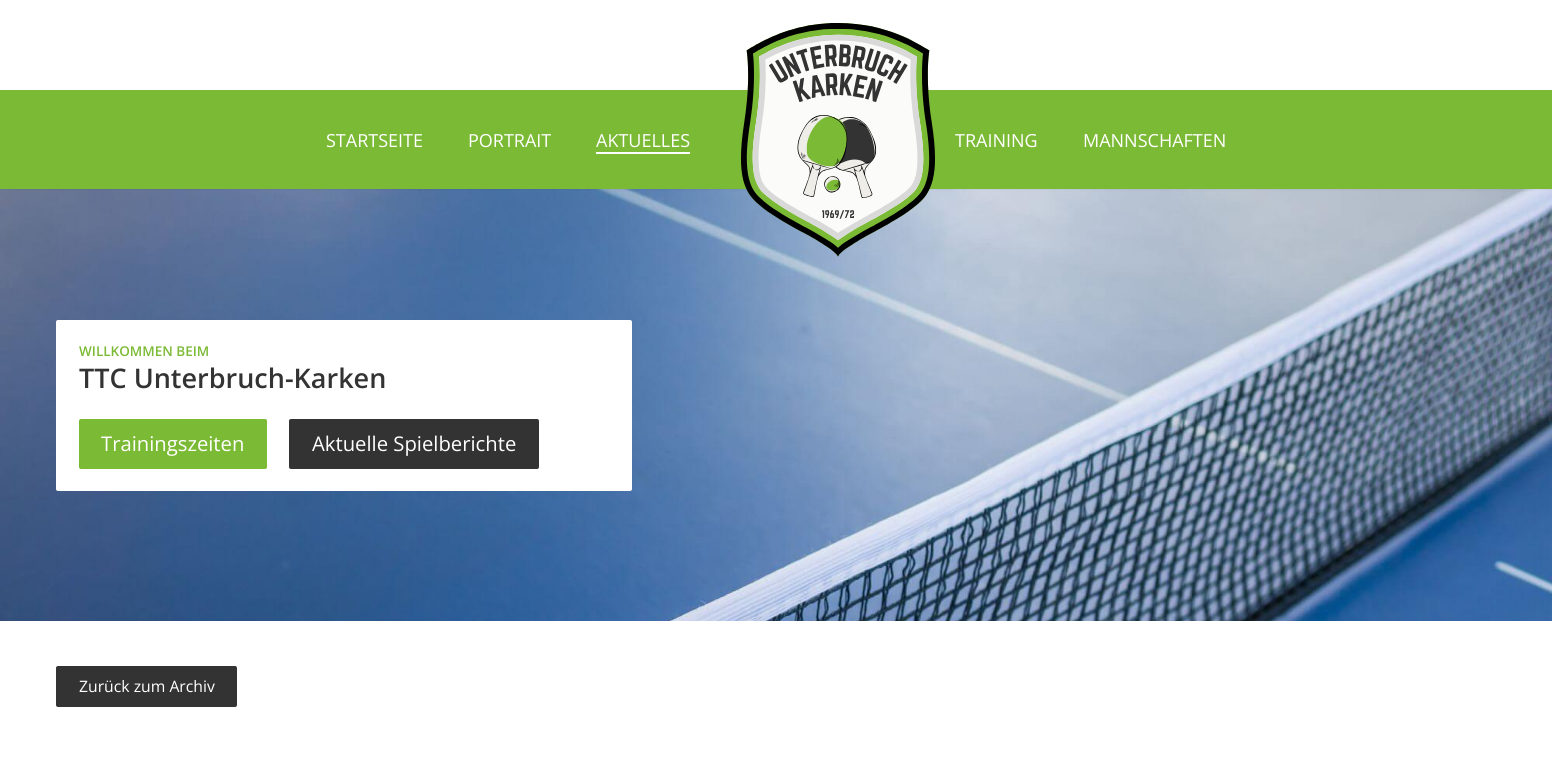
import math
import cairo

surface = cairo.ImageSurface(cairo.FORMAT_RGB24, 1552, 776)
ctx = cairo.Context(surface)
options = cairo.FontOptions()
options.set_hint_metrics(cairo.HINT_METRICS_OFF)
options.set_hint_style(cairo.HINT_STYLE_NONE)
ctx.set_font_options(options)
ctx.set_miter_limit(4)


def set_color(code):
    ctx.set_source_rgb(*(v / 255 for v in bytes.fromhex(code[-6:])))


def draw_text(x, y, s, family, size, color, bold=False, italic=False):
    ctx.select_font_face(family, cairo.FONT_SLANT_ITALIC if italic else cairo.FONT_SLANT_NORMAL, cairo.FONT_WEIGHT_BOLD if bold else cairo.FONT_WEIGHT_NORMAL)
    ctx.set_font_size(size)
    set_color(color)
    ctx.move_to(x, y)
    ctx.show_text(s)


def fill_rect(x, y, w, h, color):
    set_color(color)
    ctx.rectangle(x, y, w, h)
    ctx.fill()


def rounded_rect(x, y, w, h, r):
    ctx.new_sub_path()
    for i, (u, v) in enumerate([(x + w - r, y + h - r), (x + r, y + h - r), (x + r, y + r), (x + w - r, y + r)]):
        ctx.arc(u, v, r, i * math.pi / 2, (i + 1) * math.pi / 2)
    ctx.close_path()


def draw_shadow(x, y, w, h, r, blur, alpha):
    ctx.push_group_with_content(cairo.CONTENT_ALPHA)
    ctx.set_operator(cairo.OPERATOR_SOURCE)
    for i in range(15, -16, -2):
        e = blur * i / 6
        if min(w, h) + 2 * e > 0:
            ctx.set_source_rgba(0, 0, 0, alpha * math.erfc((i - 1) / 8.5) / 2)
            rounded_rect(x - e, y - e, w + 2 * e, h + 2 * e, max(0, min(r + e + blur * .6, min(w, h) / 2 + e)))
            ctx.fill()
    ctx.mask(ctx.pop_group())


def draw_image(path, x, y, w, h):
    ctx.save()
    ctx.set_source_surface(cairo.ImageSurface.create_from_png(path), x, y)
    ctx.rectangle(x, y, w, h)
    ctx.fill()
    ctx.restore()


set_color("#ffffff")
ctx.paint()
draw_image("assets/img2.png", 0, 189, 1552, 432)
set_color("#000000")
draw_shadow(0, 91, 1552, 99, 0, 1, 0.05)
fill_rect(0, 90, 1552, 99, "#7bba35")
draw_text(326, 147, "STARTSEITE", "Open Sans", 18, "#ffffff")
draw_text(468, 147, "PORTRAIT", "Open Sans", 18, "#ffffff")
draw_text(596, 147, "AKTUELLES", "Open Sans", 18, "#ffffff")
fill_rect(596, 152, 94, 2, "#ffffff")
draw_image("assets/img1.png", 741, 23, 194, 234)
draw_text(955, 147, "TRAINING", "Open Sans", 18, "#ffffff")
draw_text(1083, 147, "MANNSCHAFTEN", "Open Sans", 18, "#ffffff")
rounded_rect(56, 320, 576, 171, 2)
ctx.fill()
draw_text(79, 356, "WILLKOMMEN BEIM", "Open Sans SemiBold", 13.5, "#7bba35")
draw_text(79, 388, "TTC Unterbruch-Karken", "Open Sans SemiBold", 27, "#333333")
set_color("#7bba35")
rounded_rect(79, 419, 188, 50, 2)
ctx.fill()
draw_text(101, 451, "Trainingszeiten", "Open Sans", 20.25, "#ffffff")
set_color("#333333")
rounded_rect(289, 419, 250, 50, 2)
ctx.fill()
draw_text(312, 451, "Aktuelle Spielberichte", "Open Sans", 20.25, "#ffffff")
set_color("#333333")
rounded_rect(56, 666, 181, 41, 2)
ctx.fill()
draw_text(79, 692, "Zurück zum Archiv", "Open Sans", 15.75, "#ffffff")
surface.write_to_png("output.png")
